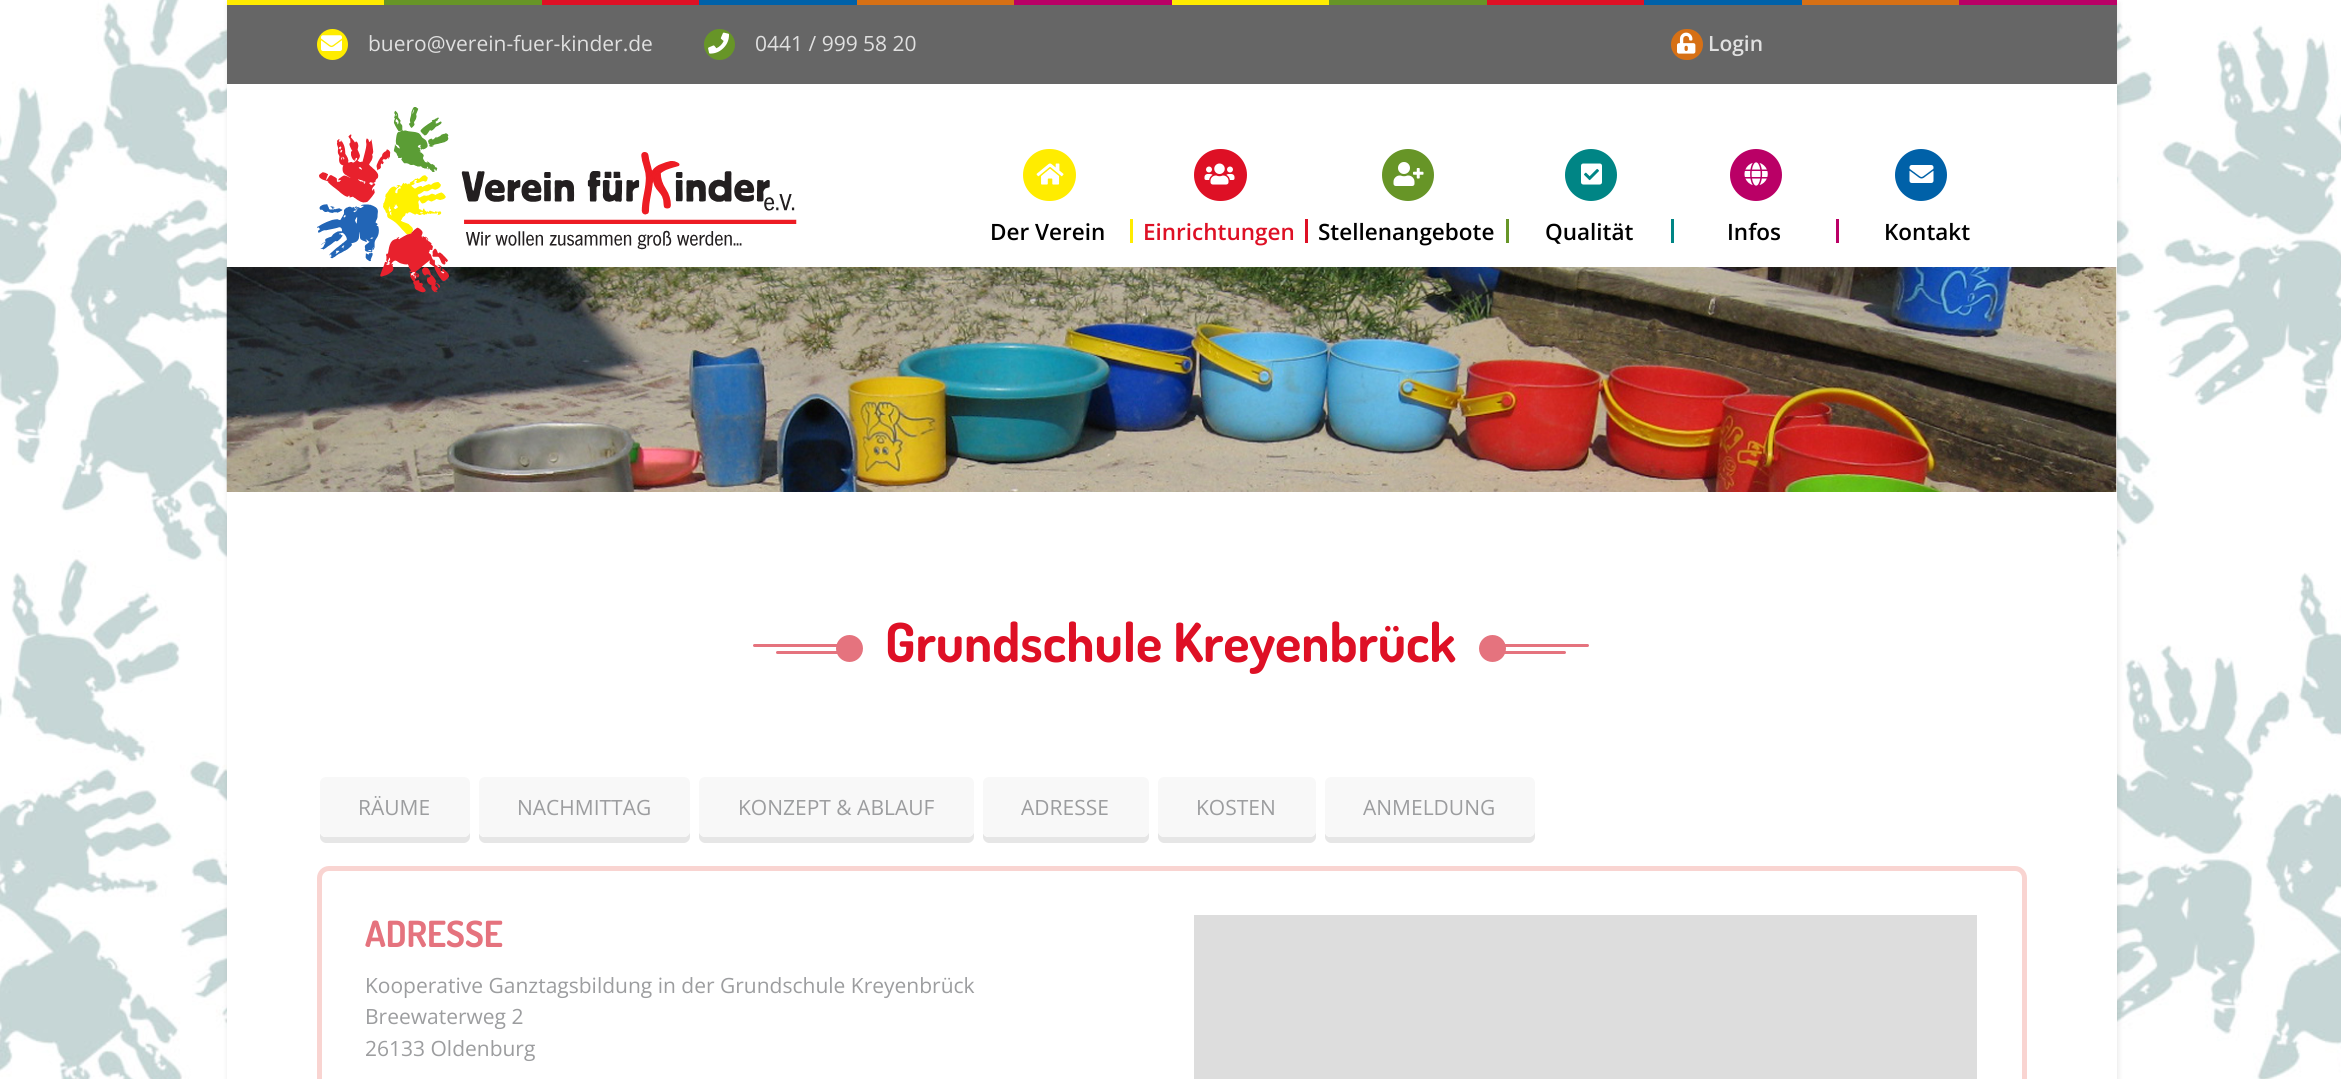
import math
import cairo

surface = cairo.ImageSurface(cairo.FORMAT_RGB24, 2341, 1079)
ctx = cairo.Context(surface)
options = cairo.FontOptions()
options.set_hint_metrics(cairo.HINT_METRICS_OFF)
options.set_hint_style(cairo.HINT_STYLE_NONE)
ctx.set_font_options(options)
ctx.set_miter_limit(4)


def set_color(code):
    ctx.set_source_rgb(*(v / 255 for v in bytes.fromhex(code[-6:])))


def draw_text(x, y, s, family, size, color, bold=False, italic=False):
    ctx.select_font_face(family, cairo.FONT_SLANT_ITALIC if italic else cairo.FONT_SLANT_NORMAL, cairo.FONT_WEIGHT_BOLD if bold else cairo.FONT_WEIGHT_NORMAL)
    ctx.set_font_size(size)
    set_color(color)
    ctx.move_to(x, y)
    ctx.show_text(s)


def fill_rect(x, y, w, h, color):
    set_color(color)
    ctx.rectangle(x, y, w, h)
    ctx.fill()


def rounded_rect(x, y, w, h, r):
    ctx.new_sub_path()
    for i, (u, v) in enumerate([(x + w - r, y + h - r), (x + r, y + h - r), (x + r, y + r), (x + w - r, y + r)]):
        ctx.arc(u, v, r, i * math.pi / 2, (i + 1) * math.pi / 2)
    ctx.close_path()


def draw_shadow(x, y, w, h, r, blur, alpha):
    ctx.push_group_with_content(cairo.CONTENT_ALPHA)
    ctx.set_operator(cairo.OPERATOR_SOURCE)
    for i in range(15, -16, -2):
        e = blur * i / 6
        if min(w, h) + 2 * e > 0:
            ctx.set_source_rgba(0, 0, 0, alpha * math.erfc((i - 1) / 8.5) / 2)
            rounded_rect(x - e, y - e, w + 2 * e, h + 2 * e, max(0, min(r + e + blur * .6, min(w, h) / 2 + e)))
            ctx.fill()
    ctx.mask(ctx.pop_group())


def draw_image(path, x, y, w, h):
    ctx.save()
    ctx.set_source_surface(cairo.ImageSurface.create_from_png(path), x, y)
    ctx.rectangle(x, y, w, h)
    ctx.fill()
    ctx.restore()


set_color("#ffffff")
ctx.paint()
draw_image("assets/img1.png", 0, 0, 2341, 1079)
set_color("#000000")
draw_shadow(228, 3, 1890, 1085, 0, 3, 0.1)
fill_rect(227, 84, 1890, 995, "#ffffff")
fill_rect(227, 0, 157, 5, "#ffec00")
fill_rect(384, 0, 158, 5, "#679527")
fill_rect(542, 0, 157, 5, "#de1025")
fill_rect(699, 0, 158, 5, "#0061a8")
fill_rect(857, 0, 157, 5, "#d67015")
fill_rect(1014, 0, 158, 5, "#ba0066")
fill_rect(1172, 0, 157, 5, "#ffec00")
fill_rect(1329, 0, 158, 5, "#679527")
fill_rect(1487, 0, 157, 5, "#de1025")
fill_rect(1644, 0, 158, 5, "#0061a8")
fill_rect(1802, 0, 157, 5, "#d67015")
fill_rect(1959, 0, 158, 5, "#ba0066")
fill_rect(227, 5, 1890, 79, "#666666")
set_color("#ffec00")
ctx.arc(332.5, 44.5, 15.5, 0, 2 * math.pi)
ctx.fill()
draw_image("assets/img2.png", 321, 35, 21, 16)
draw_text(368, 51, "buero@verein-fuer-kinder.de", "Open Sans", 21, "#e0e0e0")
set_color("#679527")
ctx.new_path()
ctx.arc(719.5, 44.5, 15.5, 0, 2 * math.pi)
ctx.fill()
draw_image("assets/img3.png", 708, 32, 21, 22)
draw_text(755, 51, "0441 / 999 58 20", "Open Sans", 21, "#e0e0e0")
set_color("#d67015")
rounded_rect(1671, 29, 32, 31, 15.5)
ctx.fill()
draw_image("assets/img4.png", 1677, 32, 19, 22)
draw_text(1708, 51, "Login", "Open Sans SemiBold", 21, "#e0e0e0")
draw_image("assets/img12.png", 226, 267, 1891, 225)
draw_image("assets/img5.png", 317, 107, 480, 186)
set_color("#ffec00")
rounded_rect(1023, 149, 53, 52, 26)
ctx.fill()
draw_image("assets/img6.png", 1036, 163, 28, 22)
fill_rect(1130, 219, 3, 24, "#ffec00")
draw_text(990, 240, "Der Verein", "Open Sans SemiBold", 22.5, "#000000")
set_color("#de1025")
rounded_rect(1194, 149, 53, 52, 26)
ctx.fill()
draw_image("assets/img7.png", 1204, 163, 31, 22)
fill_rect(1305, 219, 3, 24, "#de1025")
draw_text(1143, 240, "Einrichtungen", "Open Sans SemiBold", 22.5, "#de1025")
set_color("#679527")
ctx.new_path()
ctx.arc(1408, 175, 26, 0, 2 * math.pi)
ctx.fill()
draw_image("assets/img8.png", 1393, 162, 31, 24)
fill_rect(1506, 219, 3, 24, "#679527")
draw_text(1318, 240, "Stellenangebote", "Open Sans SemiBold", 22.5, "#000000")
set_color("#008585")
ctx.new_path()
ctx.arc(1591, 175, 26, 0, 2 * math.pi)
ctx.fill()
draw_image("assets/img9.png", 1581, 163, 21, 22)
fill_rect(1671, 219, 3, 24, "#008585")
draw_text(1545, 240, "Qualität", "Open Sans SemiBold", 22.5, "#000000")
set_color("#ba0066")
ctx.new_path()
ctx.arc(1756, 175, 26, 0, 2 * math.pi)
ctx.fill()
draw_image("assets/img10.png", 1744, 162, 24, 24)
fill_rect(1836, 219, 3, 24, "#ba0066")
draw_text(1727, 240, "Infos", "Open Sans SemiBold", 22.5, "#000000")
set_color("#0061a8")
ctx.new_path()
ctx.arc(1921, 175, 26, 0, 2 * math.pi)
ctx.fill()
draw_image("assets/img11.png", 1909, 165, 25, 18)
draw_text(1884, 240, "Kontakt", "Open Sans SemiBold", 22.5, "#000000")
set_color("#e5737e")
ctx.new_path()
ctx.arc(849.5, 648.5, 13.5, 0, 2 * math.pi)
ctx.fill()
rounded_rect(753, 644, 105, 3, 1.5)
ctx.fill()
rounded_rect(776, 651, 82, 3, 1.5)
ctx.fill()
draw_text(885, 662, "Grundschule Kreyenbrück", "Dosis", 54, "#de1025", bold=True)
set_color("#e5737e")
ctx.new_path()
ctx.arc(1492.5, 648.5, 13.5, 0, 2 * math.pi)
ctx.fill()
rounded_rect(1484, 644, 105, 3, 1.5)
ctx.fill()
rounded_rect(1484, 651, 82, 3, 1.5)
ctx.fill()
set_color("#e6e6e6")
ctx.new_path()
ctx.move_to(320, 833)
ctx.line_to(320, 837)
ctx.curve_to(320, 840, 323, 843, 326, 843)
ctx.line_to(464, 843)
ctx.curve_to(467, 843, 470, 840, 470, 837)
ctx.line_to(470, 789)
ctx.line_to(470, 787)
ctx.line_to(470, 831)
ctx.curve_to(470, 834, 467, 837, 464, 837)
ctx.line_to(326, 837)
ctx.curve_to(323, 837, 321, 836, 320, 833)
ctx.close_path()
ctx.fill()
set_color("#f8f8f8")
rounded_rect(320, 777, 150, 60, 6)
ctx.fill()
draw_text(358, 815, "RÄUME", "Open Sans", 21, "#9c9d9f")
set_color("#e6e6e6")
ctx.new_path()
ctx.move_to(479, 833)
ctx.line_to(479, 837)
ctx.curve_to(479, 840, 482, 843, 485, 843)
ctx.line_to(684, 843)
ctx.curve_to(687, 843, 690, 840, 690, 837)
ctx.line_to(690, 831)
ctx.curve_to(690, 834, 687, 837, 684, 837)
ctx.line_to(484, 837)
ctx.curve_to(482, 837, 480, 836, 479, 833)
ctx.close_path()
ctx.fill()
set_color("#f8f8f8")
rounded_rect(479, 777, 211, 60, 6)
ctx.fill()
draw_text(517, 815, "NACHMITTAG", "Open Sans", 21, "#9c9d9f")
set_color("#e6e6e6")
ctx.new_path()
ctx.move_to(699, 831)
ctx.line_to(699, 837)
ctx.curve_to(699, 840, 702, 843, 705, 843)
ctx.line_to(968, 843)
ctx.curve_to(971, 843, 974, 840, 974, 837)
ctx.line_to(974, 789)
ctx.line_to(974, 787)
ctx.line_to(974, 831)
ctx.curve_to(974, 834, 971, 837, 968, 837)
ctx.line_to(705, 837)
ctx.curve_to(702, 837, 699, 834, 699, 831)
ctx.close_path()
ctx.fill()
set_color("#f8f8f8")
rounded_rect(699, 777, 275, 60, 6)
ctx.fill()
draw_text(738, 815, "KONZEPT & ABLAUF", "Open Sans", 21, "#9c9d9f")
set_color("#e6e6e6")
ctx.new_path()
ctx.move_to(983, 833)
ctx.line_to(983, 837)
ctx.curve_to(983, 840, 986, 843, 989, 843)
ctx.line_to(1143, 843)
ctx.curve_to(1146, 843, 1149, 840, 1149, 837)
ctx.line_to(1149, 831)
ctx.curve_to(1149, 834, 1146, 837, 1143, 837)
ctx.line_to(988, 837)
ctx.curve_to(986, 837, 984, 836, 983, 833)
ctx.close_path()
ctx.fill()
set_color("#f8f8f8")
rounded_rect(983, 777, 166, 60, 6)
ctx.fill()
draw_text(1021, 815, "ADRESSE", "Open Sans", 21, "#9c9d9f")
set_color("#e6e6e6")
ctx.new_path()
ctx.move_to(1158, 831)
ctx.line_to(1158, 837)
ctx.curve_to(1158, 840, 1161, 843, 1164, 843)
ctx.line_to(1310, 843)
ctx.curve_to(1313, 843, 1316, 840, 1316, 837)
ctx.line_to(1316, 789)
ctx.line_to(1316, 787)
ctx.line_to(1316, 831)
ctx.curve_to(1316, 834, 1313, 837, 1310, 837)
ctx.line_to(1164, 837)
ctx.curve_to(1161, 837, 1158, 834, 1158, 831)
ctx.close_path()
ctx.fill()
set_color("#f8f8f8")
rounded_rect(1158, 777, 158, 60, 6)
ctx.fill()
draw_text(1196, 815, "KOSTEN", "Open Sans", 21, "#9c9d9f")
set_color("#e6e6e6")
ctx.new_path()
ctx.move_to(1325, 833)
ctx.line_to(1325, 837)
ctx.curve_to(1325, 840, 1328, 843, 1331, 843)
ctx.line_to(1529, 843)
ctx.curve_to(1532, 843, 1535, 840, 1535, 837)
ctx.line_to(1535, 789)
ctx.line_to(1534, 787)
ctx.line_to(1534, 831)
ctx.curve_to(1534, 834, 1532, 837, 1528, 837)
ctx.line_to(1330, 837)
ctx.curve_to(1328, 837, 1326, 836, 1325, 833)
ctx.close_path()
ctx.fill()
set_color("#f8f8f8")
rounded_rect(1325, 777, 210, 60, 6)
ctx.fill()
draw_text(1363, 815, "ANMELDUNG", "Open Sans", 21, "#9c9d9f")
rounded_rect(319.5, 868.5, 1705, 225, 9.5)
set_color("#f9d4d1")
ctx.set_line_width(5)
ctx.stroke()
draw_text(365, 947, "ADRESSE", "Dosis", 36, "#e5737e", bold=True)
draw_text(365, 993, "Kooperative Ganztagsbildung in der Grundschule Kreyenbrück", "Open Sans", 21, "#9c9d9f")
draw_text(365, 1024, "Breewaterweg 2", "Open Sans", 21, "#9c9d9f")
draw_text(365, 1056, "26133 Oldenburg", "Open Sans", 21, "#9c9d9f")
fill_rect(1194, 915, 783, 164, "#dddddd")
surface.write_to_png("output.png")
